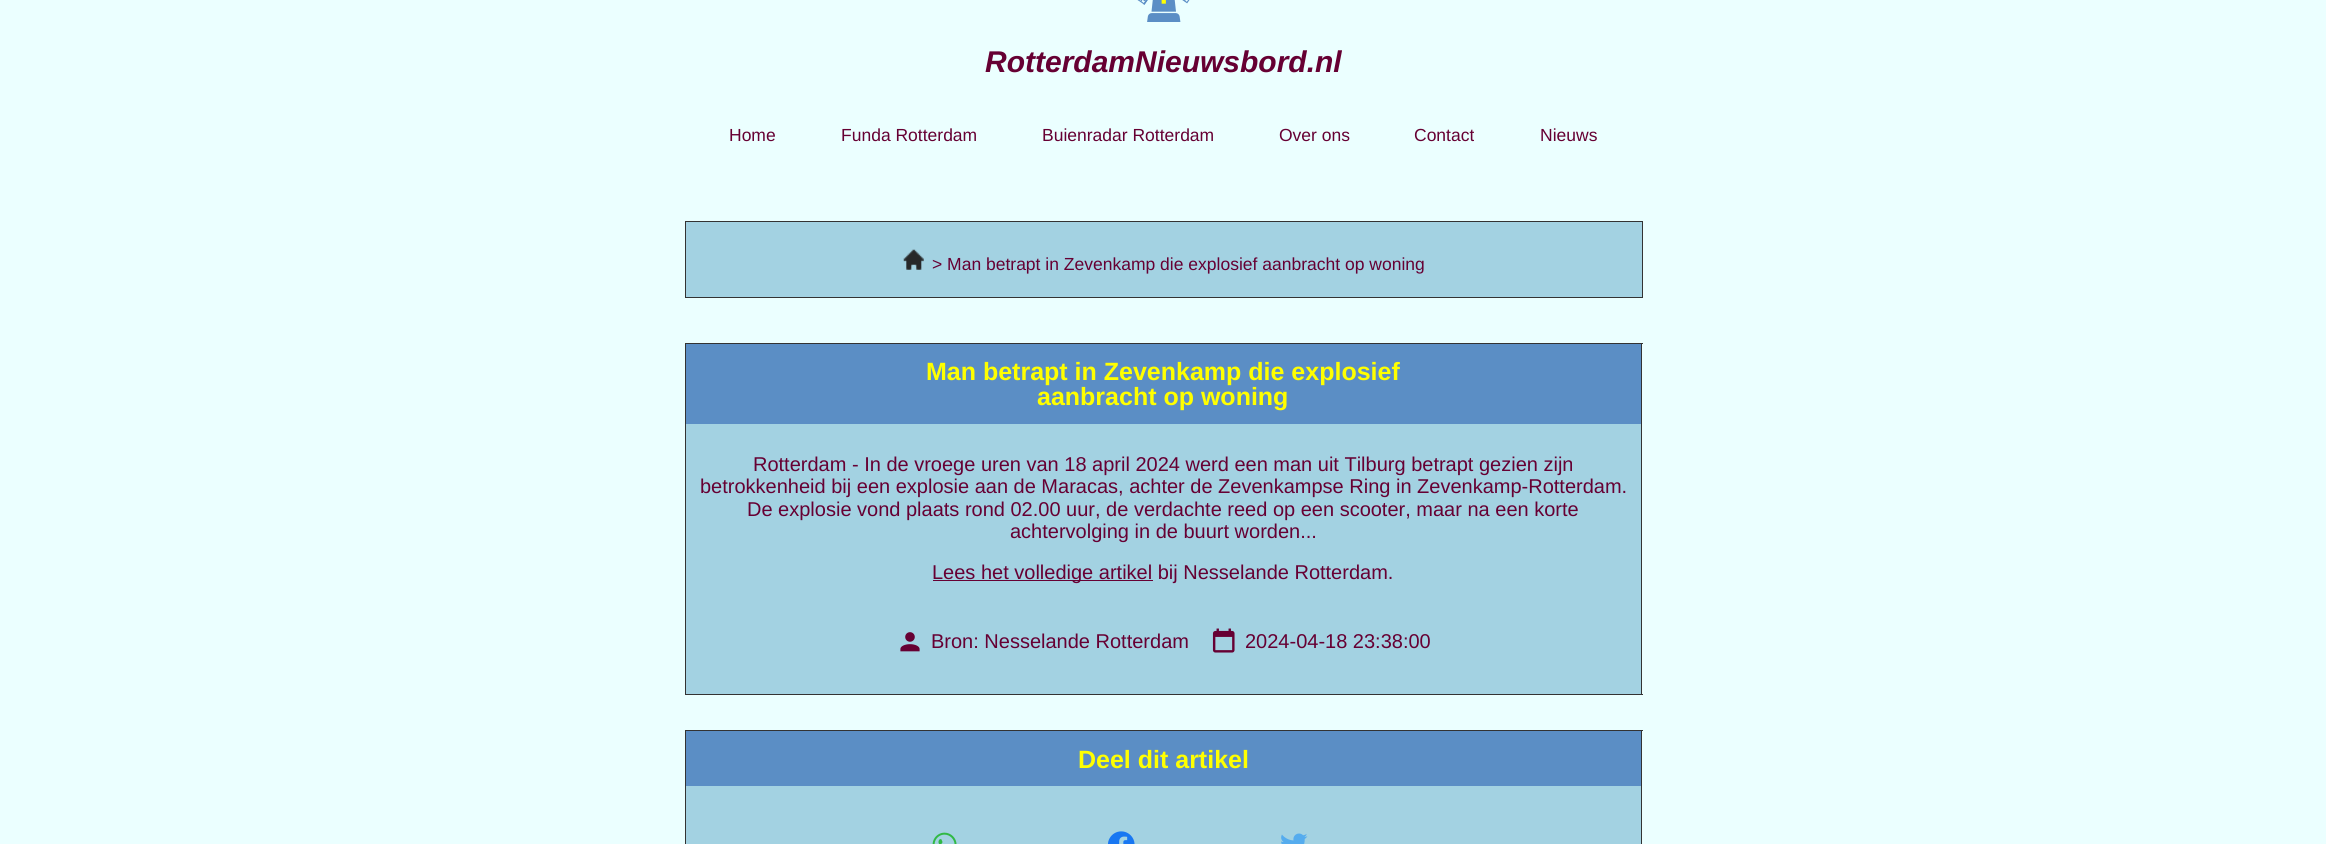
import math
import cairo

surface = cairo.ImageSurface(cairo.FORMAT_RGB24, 2326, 844)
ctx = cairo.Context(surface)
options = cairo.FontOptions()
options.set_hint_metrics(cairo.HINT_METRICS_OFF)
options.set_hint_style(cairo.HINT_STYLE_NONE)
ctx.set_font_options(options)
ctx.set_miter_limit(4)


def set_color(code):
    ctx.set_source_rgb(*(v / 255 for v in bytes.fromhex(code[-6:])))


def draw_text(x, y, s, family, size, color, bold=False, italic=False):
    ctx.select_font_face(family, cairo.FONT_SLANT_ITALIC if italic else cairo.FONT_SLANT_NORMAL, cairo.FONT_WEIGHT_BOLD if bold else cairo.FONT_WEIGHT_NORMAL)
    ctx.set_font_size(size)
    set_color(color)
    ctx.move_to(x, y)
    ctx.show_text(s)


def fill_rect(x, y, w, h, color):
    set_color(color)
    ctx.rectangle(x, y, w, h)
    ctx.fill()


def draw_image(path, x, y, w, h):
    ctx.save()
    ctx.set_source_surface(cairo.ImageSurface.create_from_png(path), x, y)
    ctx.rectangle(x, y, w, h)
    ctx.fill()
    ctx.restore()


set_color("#ebffff")
ctx.paint()
draw_image("assets/img1.png", 1137, 0, 53, 22)
draw_text(985, 72, "RotterdamNieuwsbord.nl", "Liberation Sans", 30, "#660033", bold=True, italic=True)
draw_text(729, 141, "Home", "Liberation Sans", 17.5, "#660033")
draw_text(841, 141, "Funda Rotterdam", "Liberation Sans", 17.5, "#660033")
draw_text(1042, 141, "Buienradar Rotterdam", "Liberation Sans", 17.5, "#660033")
draw_text(1279, 141, "Over ons", "Liberation Sans", 17.5, "#660033")
draw_text(1414, 141, "Contact", "Liberation Sans", 17.5, "#660033")
draw_text(1540, 141, "Nieuws", "Liberation Sans", 17.5, "#660033")
set_color("#a3d2e2")
ctx.rectangle(685.5, 221.5, 957, 76)
ctx.fill_preserve()
set_color("#333333")
ctx.set_line_width(1)
ctx.stroke()
draw_image("assets/img2.png", 903, 249, 21, 21)
draw_text(932, 270, "> Man betrapt in Zevenkamp die explosief aanbracht op woning", "Liberation Sans", 17.5, "#660033")
fill_rect(686, 344, 955, 80, "#5b8ec5")
fill_rect(685, 343, 958, 1, "#333333")
fill_rect(1641, 343, 1, 352, "#333333")
fill_rect(685, 343, 1, 81, "#333333")
draw_text(926, 380, "Man betrapt in Zevenkamp die explosief", "Liberation Sans", 25, "#ffff00", bold=True)
draw_text(1037, 405, "aanbracht op woning", "Liberation Sans", 25, "#ffff00", bold=True)
fill_rect(686, 424, 955, 270, "#a3d2e2")
fill_rect(685, 694, 958, 1, "#333333")
fill_rect(685, 424, 1, 271, "#333333")
draw_text(753, 471, "Rotterdam - In de vroege uren van 18 april 2024 werd een man uit Tilburg betrapt gezien zijn", "Liberation Sans", 20, "#660033")
draw_text(700, 493, "betrokkenheid bij een explosie aan de Maracas, achter de Zevenkampse Ring in Zevenkamp-Rotterdam.", "Liberation Sans", 20, "#660033")
draw_text(747, 516, "De explosie vond plaats rond 02.00 uur, de verdachte reed op een scooter, maar na een korte", "Liberation Sans", 20, "#660033")
draw_text(1010, 538, "achtervolging in de buurt worden...", "Liberation Sans", 20, "#660033")
fill_rect(933, 580, 220, 1, "#660033")
draw_text(932, 579, "Lees het volledige artikel bij Nesselande Rotterdam.", "Liberation Sans", 20, "#660033")
draw_image("assets/img3.png", 900, 632, 20, 20)
draw_text(931, 648, "Bron: Nesselande Rotterdam", "Liberation Sans", 20, "#660033")
draw_image("assets/img4.png", 1212, 628, 23, 25)
draw_text(1245, 648, "2024-04-18 23:38:00", "Liberation Sans", 20, "#660033")
fill_rect(686, 731, 955, 55, "#5b8ec5")
fill_rect(685, 730, 958, 1, "#333333")
fill_rect(1641, 730, 1, 114, "#333333")
fill_rect(685, 730, 1, 114, "#333333")
draw_text(1078, 768, "Deel dit artikel", "Liberation Sans", 25, "#ffff00", bold=True)
fill_rect(686, 786, 955, 58, "#a3d2e2")
draw_image("assets/img5.png", 932, 832, 25, 12)
draw_image("assets/img6.png", 1108, 831, 27, 13)
draw_image("assets/img7.png", 1281, 833, 27, 11)
surface.write_to_png("output.png")
